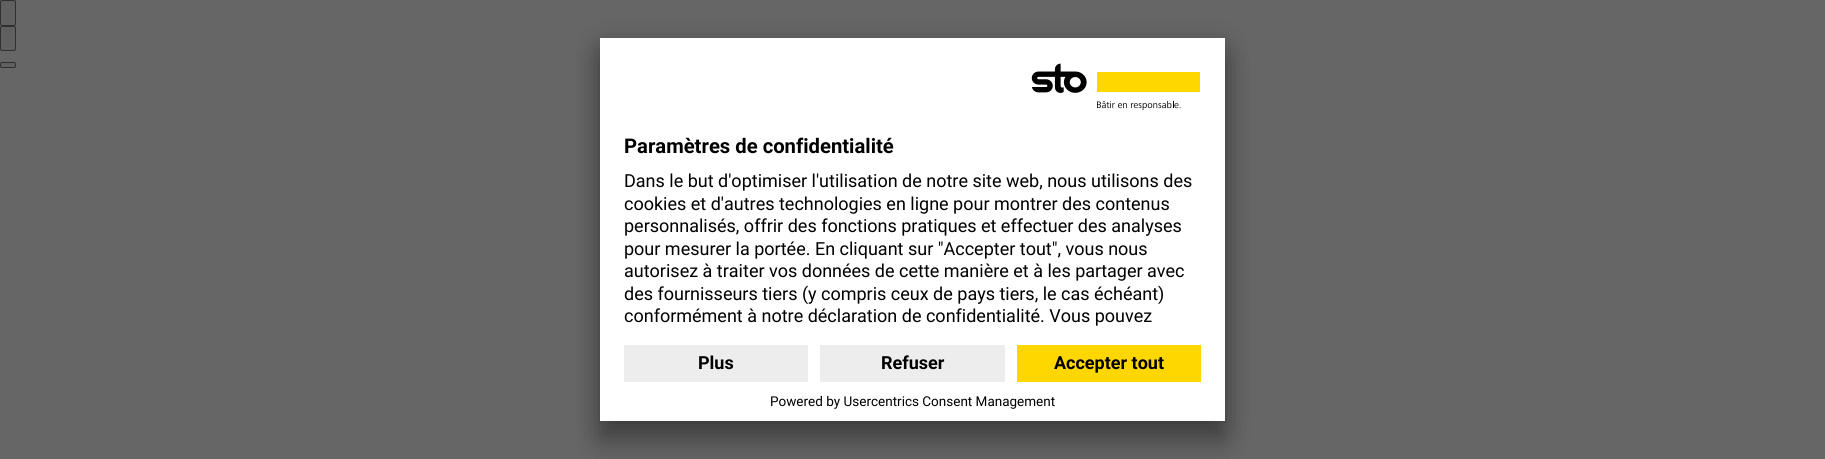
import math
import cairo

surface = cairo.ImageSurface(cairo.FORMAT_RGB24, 1825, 459)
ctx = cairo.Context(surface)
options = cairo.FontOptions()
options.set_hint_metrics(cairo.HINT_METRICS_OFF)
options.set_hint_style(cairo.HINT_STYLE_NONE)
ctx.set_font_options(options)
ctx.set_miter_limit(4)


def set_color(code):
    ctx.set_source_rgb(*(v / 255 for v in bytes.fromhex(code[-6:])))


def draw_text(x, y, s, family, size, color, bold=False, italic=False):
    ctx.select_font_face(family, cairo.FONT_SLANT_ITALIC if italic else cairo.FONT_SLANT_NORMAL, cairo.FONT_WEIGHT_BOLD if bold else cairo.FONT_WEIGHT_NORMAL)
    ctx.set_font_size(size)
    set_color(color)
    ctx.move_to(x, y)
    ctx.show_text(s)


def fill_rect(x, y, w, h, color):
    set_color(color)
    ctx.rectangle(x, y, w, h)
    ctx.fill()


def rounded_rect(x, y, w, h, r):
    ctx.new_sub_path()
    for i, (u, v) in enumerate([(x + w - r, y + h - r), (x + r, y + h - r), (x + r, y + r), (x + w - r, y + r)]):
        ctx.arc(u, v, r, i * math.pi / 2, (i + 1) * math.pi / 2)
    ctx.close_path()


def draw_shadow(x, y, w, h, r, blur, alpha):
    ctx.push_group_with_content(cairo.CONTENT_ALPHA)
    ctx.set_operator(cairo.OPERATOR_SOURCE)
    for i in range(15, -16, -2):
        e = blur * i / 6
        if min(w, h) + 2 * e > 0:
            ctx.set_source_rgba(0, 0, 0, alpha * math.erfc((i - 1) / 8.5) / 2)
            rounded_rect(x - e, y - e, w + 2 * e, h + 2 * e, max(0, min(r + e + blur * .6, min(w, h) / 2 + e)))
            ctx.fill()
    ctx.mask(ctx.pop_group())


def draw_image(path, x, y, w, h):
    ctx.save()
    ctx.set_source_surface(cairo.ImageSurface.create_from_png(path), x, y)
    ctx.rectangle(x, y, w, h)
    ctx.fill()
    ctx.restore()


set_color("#666666")
ctx.paint()
set_color("#606060")
rounded_rect(0.5, 0.5, 15, 25, 1.5)
ctx.fill_preserve()
set_color("#2f2f2f")
ctx.set_line_width(1)
ctx.stroke()
set_color("#606060")
rounded_rect(0.5, 26.5, 15, 24, 1.5)
ctx.fill_preserve()
set_color("#2f2f2f")
ctx.stroke()
set_color("#606060")
rounded_rect(0.5, 62.5, 15, 5, 1.5)
ctx.fill_preserve()
set_color("#2f2f2f")
ctx.stroke()
set_color("#000000")
draw_shadow(600, 58, 625, 383, 0, 14, 0.3)
draw_shadow(600, 43, 625, 383, 0, 13, 0.22)
fill_rect(600, 38, 625, 383, "#ffffff")
draw_image("assets/img1.png", 1031, 63, 169, 48)
draw_text(624, 153, "Paramètres de confidentialité", "Roboto", 20.25, "#000000", bold=True)
draw_text(624, 187, "Dans le but d'optimiser l'utilisation de notre site web, nous utilisons des", "Roboto", 18, "#000000")
draw_text(624, 210, "cookies et d'autres technologies en ligne pour montrer des contenus", "Roboto", 18, "#000000")
draw_text(624, 232, "personnalisés, offrir des fonctions pratiques et effectuer des analyses", "Roboto", 18, "#000000")
draw_text(624, 255, "pour mesurer la portée. En cliquant sur \"Accepter tout\", vous nous", "Roboto", 18, "#000000")
draw_text(624, 277, "autorisez à traiter vos données de cette manière et à les partager avec", "Roboto", 18, "#000000")
draw_text(624, 300, "des fournisseurs tiers (y compris ceux de pays tiers, le cas échéant)", "Roboto", 18, "#000000")
draw_text(624, 322, "conformément à notre déclaration de confidentialité. Vous pouvez", "Roboto", 18, "#000000")
fill_rect(624, 345, 184, 37, "#ededed")
draw_text(698, 369, "Plus", "Roboto", 18, "#000000", bold=True)
fill_rect(820, 345, 185, 37, "#ededed")
draw_text(881, 369, "Refuser", "Roboto", 18, "#000000", bold=True)
fill_rect(1017, 345, 184, 37, "#ffd700")
draw_text(1054, 369, "Accepter tout", "Roboto", 18, "#000000", bold=True)
draw_text(770, 406, "Powered by Usercentrics Consent Management", "Roboto", 13.5, "#000000")
surface.write_to_png("output.png")
